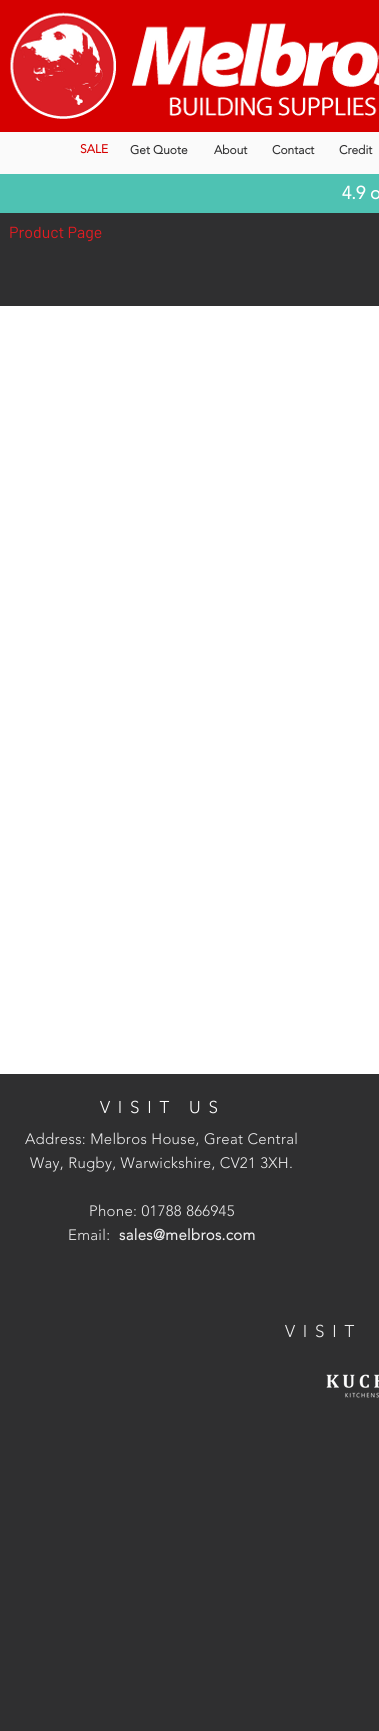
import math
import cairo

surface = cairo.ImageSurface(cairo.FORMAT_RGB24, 379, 1731)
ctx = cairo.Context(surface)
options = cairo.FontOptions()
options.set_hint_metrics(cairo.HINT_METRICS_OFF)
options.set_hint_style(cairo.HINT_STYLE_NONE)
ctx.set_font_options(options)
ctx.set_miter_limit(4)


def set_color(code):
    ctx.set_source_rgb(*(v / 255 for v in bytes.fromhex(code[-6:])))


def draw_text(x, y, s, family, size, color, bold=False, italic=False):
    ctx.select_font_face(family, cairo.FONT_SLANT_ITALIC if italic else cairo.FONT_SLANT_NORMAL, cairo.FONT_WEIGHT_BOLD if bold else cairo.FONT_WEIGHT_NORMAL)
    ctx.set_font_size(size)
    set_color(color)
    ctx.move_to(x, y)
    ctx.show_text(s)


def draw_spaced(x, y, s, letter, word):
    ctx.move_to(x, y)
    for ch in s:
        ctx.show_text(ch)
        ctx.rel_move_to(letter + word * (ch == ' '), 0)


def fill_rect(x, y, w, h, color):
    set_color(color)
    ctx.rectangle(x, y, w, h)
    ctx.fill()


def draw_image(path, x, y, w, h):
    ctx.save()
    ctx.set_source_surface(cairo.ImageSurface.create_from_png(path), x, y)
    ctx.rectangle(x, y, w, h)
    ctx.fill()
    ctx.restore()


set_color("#ffffff")
ctx.paint()
fill_rect(0, 0, 379, 132, "#d60000")
draw_image("assets/img1.png", 10, 12, 369, 107)
fill_rect(0, 132, 379, 42, "#fafafa")
draw_text(80, 153, "SALE", "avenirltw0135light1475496", 12, "#d60000", bold=True)
draw_text(130, 154, "Get Quote", "avenirltw0135light1475496", 12, "#2f2f30", bold=True)
draw_text(214, 154, "About", "avenirltw0135light1475496", 12, "#2f2f30", bold=True)
draw_text(272, 154, "Contact", "avenirltw0135light1475496", 12, "#2f2f30", bold=True)
draw_text(339, 154, "Credit", "avenirltw0135light1475496", 12, "#2f2f30", bold=True)
fill_rect(0, 174, 379, 39, "#4ec2b3")
draw_text(342, 199, "4.9 o", "avenirltw0135light1475496", 18, "#ffffff", bold=True)
fill_rect(0, 213, 379, 93, "#2f2f30")
draw_text(9, 238, "Product Page", "Barlow", 16, "#e21c21")
fill_rect(0, 1074, 379, 657, "#2f2f30")
ctx.select_font_face("avenirltw0135light1475496 Light")
ctx.set_font_size(17)
set_color("#ffffff")
draw_spaced(100, 1113, "VISIT US", 7.75, 0)
ctx.set_font_size(15)
set_color("#ededee")
draw_spaced(25, 1144, "Address: Melbros House, Great Central", 0.3, 0)
draw_spaced(30, 1168, "Way, Rugby, Warwickshire, CV21 3XH.", 0.3, 0)
draw_spaced(89, 1216, "Phone: 01788 866945", 0.3, 0)
draw_spaced(68, 1240, "Email:", 0.3, 0)
ctx.select_font_face("avenirltw0135light1475496", cairo.FONT_SLANT_NORMAL, cairo.FONT_WEIGHT_BOLD)
draw_spaced(119, 1240, "sales@melbros.com", 0.3, 0)
ctx.select_font_face("avenirltw0135light1475496 Light")
ctx.set_font_size(17)
draw_spaced(285, 1337, "VISIT", 7.75, 0)
draw_image("assets/img2.png", 326, 1374, 53, 24)
surface.write_to_png("output.png")
